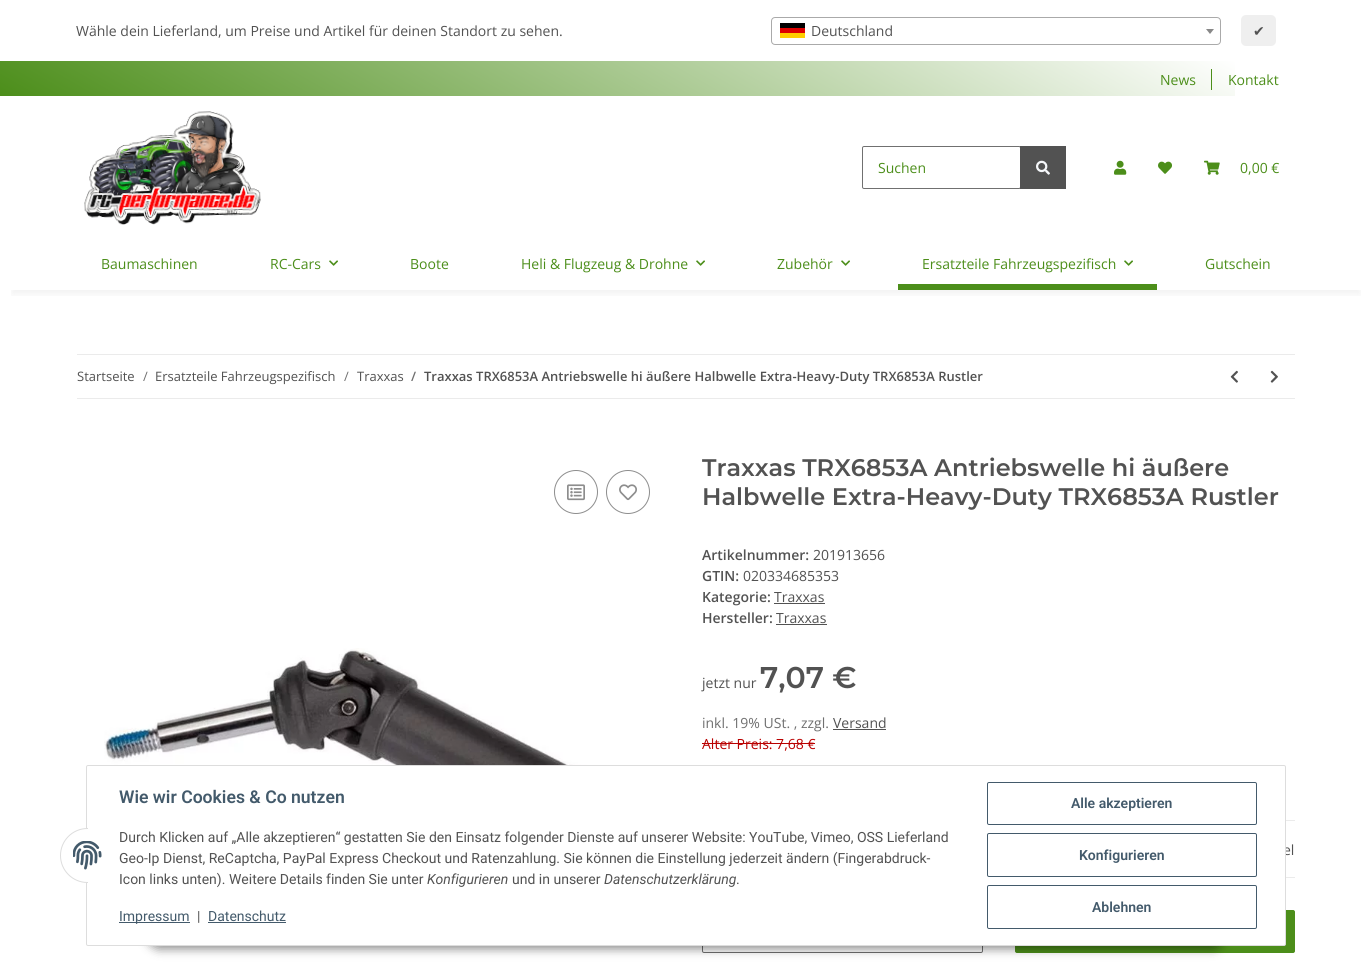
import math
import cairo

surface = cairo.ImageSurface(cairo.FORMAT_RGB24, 1372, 978)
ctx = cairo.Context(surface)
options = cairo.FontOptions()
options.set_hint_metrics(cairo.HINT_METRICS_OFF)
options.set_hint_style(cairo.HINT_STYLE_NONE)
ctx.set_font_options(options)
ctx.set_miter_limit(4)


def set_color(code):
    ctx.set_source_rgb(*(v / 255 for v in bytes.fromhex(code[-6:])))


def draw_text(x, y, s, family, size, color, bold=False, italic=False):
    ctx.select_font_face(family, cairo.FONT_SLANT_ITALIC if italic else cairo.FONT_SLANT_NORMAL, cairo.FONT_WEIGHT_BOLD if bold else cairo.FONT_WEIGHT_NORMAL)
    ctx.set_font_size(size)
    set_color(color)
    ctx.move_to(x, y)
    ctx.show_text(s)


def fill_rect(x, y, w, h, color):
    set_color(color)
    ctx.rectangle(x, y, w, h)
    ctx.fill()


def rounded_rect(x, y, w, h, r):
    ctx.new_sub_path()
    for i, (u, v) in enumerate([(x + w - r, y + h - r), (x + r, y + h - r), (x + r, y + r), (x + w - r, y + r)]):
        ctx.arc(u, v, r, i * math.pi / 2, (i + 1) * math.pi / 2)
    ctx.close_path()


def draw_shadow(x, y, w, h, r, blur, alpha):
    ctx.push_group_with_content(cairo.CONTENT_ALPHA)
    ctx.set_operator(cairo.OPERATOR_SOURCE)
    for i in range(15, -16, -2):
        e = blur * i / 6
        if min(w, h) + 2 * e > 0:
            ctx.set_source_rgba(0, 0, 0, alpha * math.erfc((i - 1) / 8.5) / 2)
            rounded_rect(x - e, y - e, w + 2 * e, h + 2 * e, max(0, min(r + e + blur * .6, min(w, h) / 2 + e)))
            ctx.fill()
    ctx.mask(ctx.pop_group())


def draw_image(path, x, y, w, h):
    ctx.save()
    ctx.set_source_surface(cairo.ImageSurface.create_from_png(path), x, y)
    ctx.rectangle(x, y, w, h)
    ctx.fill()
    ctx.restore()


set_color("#ffffff")
ctx.paint()
draw_text(76, 36, "Wähle dein Lieferland, um Preise und Artikel für deinen Standort zu sehen.", "Open Sans", 14, "#525252")
rounded_rect(771.5, 17.5, 449, 27, 3.5)
set_color("#aaaaaa")
ctx.set_line_width(1)
ctx.stroke()
fill_rect(780, 23, 25, 5, "#000000")
fill_rect(780, 28, 25, 5, "#dd0000")
fill_rect(780, 33, 25, 5, "#ffce00")
draw_text(811, 36, "Deutschland", "Open Sans", 14, "#525252")
set_color("#888888")
ctx.new_path()
ctx.move_to(1206, 29)
ctx.line_to(1214, 29)
ctx.line_to(1210, 34)
ctx.close_path()
ctx.fill()
set_color("#efefef")
rounded_rect(1241, 15, 35, 31, 5)
ctx.fill()
draw_text(1253, 36, "✔", "DejaVu Sans", 14, "#525252")
gradient = cairo.LinearGradient(456, 359, 779, -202)
gradient.add_color_stop_rgba(0, 0.298, 0.557, 0.102, 1)
gradient.add_color_stop_rgba(1, 1, 1, 1, 1)
ctx.set_source(gradient)
ctx.rectangle(0, 61, 1235, 35)
ctx.fill()
draw_text(1160, 85, "News", "Open Sans", 14, "#4c8e1a")
fill_rect(1211, 69, 1, 21, "#4c8e1a")
draw_text(1228, 85, "Kontakt", "Open Sans", 14, "#4c8e1a")
ctx.save()
ctx.rectangle(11, 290, 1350, 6)
ctx.clip()
set_color("#000000")
draw_shadow(12, 126, 1348, 168, 0, 4.5, 0.06)
ctx.restore()
draw_image("assets/img1.png", 84, 111, 177, 114)
rounded_rect(862.5, 146.5, 158, 42, 1.5)
set_color("#707070")
ctx.stroke()
draw_text(878, 173, "Suchen", "Open Sans", 14, "#4c8e1a")
fill_rect(1020, 146, 46, 43, "#525252")
draw_image("assets/img2.png", 1036, 160, 14, 15)
draw_image("assets/img3.png", 1114, 160, 13, 15)
draw_image("assets/img4.png", 1158, 161, 14, 13)
draw_image("assets/img5.png", 1204, 160, 16, 15)
draw_text(1240, 173, "0,00 €", "Open Sans", 14, "#4c8e1a")
draw_text(101, 269, "Baumaschinen", "Open Sans", 14, "#4c8e1a")
draw_text(270, 269, "RC-Cars", "Open Sans", 14, "#4c8e1a")
draw_image("assets/img6.png", 329, 260, 9, 6)
draw_text(410, 269, "Boote", "Open Sans", 14, "#4c8e1a")
draw_text(521, 269, "Heli & Flugzeug & Drohne", "Open Sans", 14, "#4c8e1a")
draw_image("assets/img6.png", 696, 260, 9, 6)
draw_text(777, 269, "Zubehör", "Open Sans", 14, "#4c8e1a")
draw_image("assets/img6.png", 841, 260, 9, 6)
draw_text(922, 269, "Ersatzteile Fahrzeugspezifisch", "Open Sans", 14, "#4c8e1a")
draw_image("assets/img6.png", 1124, 260, 9, 6)
fill_rect(898, 284, 259, 6, "#4c8e1a")
draw_text(1205, 269, "Gutschein", "Open Sans", 14, "#4c8e1a")
fill_rect(77, 354, 1218, 1, "#ebebeb")
fill_rect(77, 398, 1218, 1, "#ebebeb")
draw_text(77, 381, "Startseite", "Open Sans", 13, "#525252")
draw_text(143, 381, "/", "Open Sans", 13, "#707070")
draw_text(155, 381, "Ersatzteile Fahrzeugspezifisch", "Open Sans", 13, "#525252")
draw_text(344, 381, "/", "Open Sans", 13, "#707070")
draw_text(357, 381, "Traxxas", "Open Sans", 13, "#525252")
draw_text(411, 381, "/", "Open Sans SemiBold", 13, "#707070")
draw_text(424, 381, "Traxxas TRX6853A Antriebswelle hi äußere Halbwelle Extra-Heavy-Duty TRX6853A Rustler", "Open Sans SemiBold", 13, "#525252")
draw_image("assets/img7.png", 1230, 370, 8, 13)
draw_image("assets/img8.png", 1270, 370, 8, 13)
ctx.arc(576, 492, 21.5, 0, 2 * math.pi)
set_color("#8d8d8d")
ctx.stroke()
draw_image("assets/img9.png", 567, 484, 18, 17)
ctx.arc(628, 492, 21.5, 0, 2 * math.pi)
ctx.stroke()
draw_image("assets/img10.png", 619, 484, 18, 17)
draw_image("assets/img11.png", 104, 648, 539, 117)
draw_text(702, 476, "Traxxas TRX6853A Antriebswelle hi äußere", "Montserrat SemiBold", 24, "#525252")
draw_text(702, 505, "Halbwelle Extra-Heavy-Duty TRX6853A Rustler", "Montserrat SemiBold", 24, "#525252")
draw_text(702, 560, "Artikelnummer:", "Open Sans SemiBold", 14, "#525252")
draw_text(813, 560, "201913656", "Open Sans", 14, "#525252")
draw_text(702, 581, "GTIN:", "Open Sans SemiBold", 14, "#525252")
draw_text(743, 581, "020334685353", "Open Sans", 14, "#525252")
draw_text(702, 602, "Kategorie:", "Open Sans SemiBold", 14, "#525252")
draw_text(774, 602, "Traxxas", "Open Sans", 14, "#525252")
fill_rect(774, 603, 51, 1, "#525252")
draw_text(702, 623, "Hersteller:", "Open Sans SemiBold", 14, "#525252")
draw_text(776, 623, "Traxxas", "Open Sans", 14, "#525252")
fill_rect(776, 624, 51, 1, "#525252")
draw_text(702, 688, "jetzt nur", "Open Sans", 14, "#525252")
draw_text(760, 688, "7,07 €", "Montserrat SemiBold", 30, "#525252")
draw_text(702, 728, "inkl. 19% USt. , zzgl.", "Open Sans", 14, "#707070")
draw_text(833, 728, "Versand", "Open Sans", 14, "#525252")
fill_rect(833, 729, 53, 1, "#525252")
draw_text(702, 749, "Alter Preis: 7,68 €", "Open Sans", 14, "#b90000")
fill_rect(702, 743, 113, 1, "#b90000")
fill_rect(1286, 820, 9, 1, "#ebebeb")
fill_rect(1286, 877, 9, 1, "#ebebeb")
draw_text(1283, 855, "el", "Open Sans", 14, "#525252")
rounded_rect(702.5, 910.5, 280, 42, 1.5)
set_color("#707070")
ctx.stroke()
set_color("#4c8e1a")
rounded_rect(1015.5, 910.5, 279, 42, 1.5)
ctx.fill_preserve()
ctx.stroke()
set_color("#000000")
draw_shadow(147, 917, 1078, 32, 16, 5, 0.45)
set_color("#ffffff")
rounded_rect(86.5, 765.5, 1199, 180, 1.5)
ctx.fill_preserve()
set_color("#dddddd")
ctx.stroke()
set_color("#ffffff")
ctx.arc(87.5, 855.5, 27, 0, 2 * math.pi)
ctx.fill_preserve()
set_color("#dddddd")
ctx.stroke()
fill_rect(88, 828, 27, 55, "#ffffff")
draw_image("assets/img12.png", 73, 841, 29, 29)
draw_text(119, 803, "Wie wir Cookies & Co nutzen", "Roboto SemiBold", 17.6, "#435a6b")
draw_text(119, 842, "Durch Klicken auf „Alle akzeptieren“ gestatten Sie den Einsatz folgender Dienste auf unserer Website: YouTube, Vimeo, OSS Lieferland", "Roboto", 14, "#525252")
draw_text(119, 863, "Geo-Ip Dienst, ReCaptcha, PayPal Express Checkout und Ratenzahlung. Sie können die Einstellung jederzeit ändern (Fingerabdruck-", "Roboto", 14, "#525252")
draw_text(119, 884, "Icon links unten). Weitere Details finden Sie unter", "Roboto", 14, "#525252")
draw_text(427, 884, "Konfigurieren", "Roboto", 14, "#525252", italic=True)
draw_text(512, 884, "und in unserer", "Roboto", 14, "#525252")
draw_text(604, 884, "Datenschutzerklärung", "Roboto", 14, "#525252", italic=True)
draw_text(736, 884, ".", "Roboto", 14, "#525252")
fill_rect(119, 922, 71, 1, "#435a6b")
draw_text(119, 921, "Impressum", "Roboto", 14, "#435a6b")
draw_text(197, 921, "|", "Roboto", 14, "#525252")
draw_text(208, 921, "Datenschutz", "Roboto", 14, "#435a6b")
fill_rect(208, 922, 78, 1, "#435a6b")
rounded_rect(987.5, 782.5, 269, 42, 1.5)
ctx.stroke()
draw_text(1071, 808, "Alle akzeptieren", "Roboto SemiBold", 14, "#435a6b")
rounded_rect(987.5, 833.5, 269, 43, 1.5)
ctx.stroke()
draw_text(1079, 860, "Konfigurieren", "Roboto SemiBold", 14, "#435a6b")
rounded_rect(987.5, 885.5, 269, 43, 1.5)
ctx.stroke()
draw_text(1092, 912, "Ablehnen", "Roboto SemiBold", 14, "#435a6b")
surface.write_to_png("output.png")
